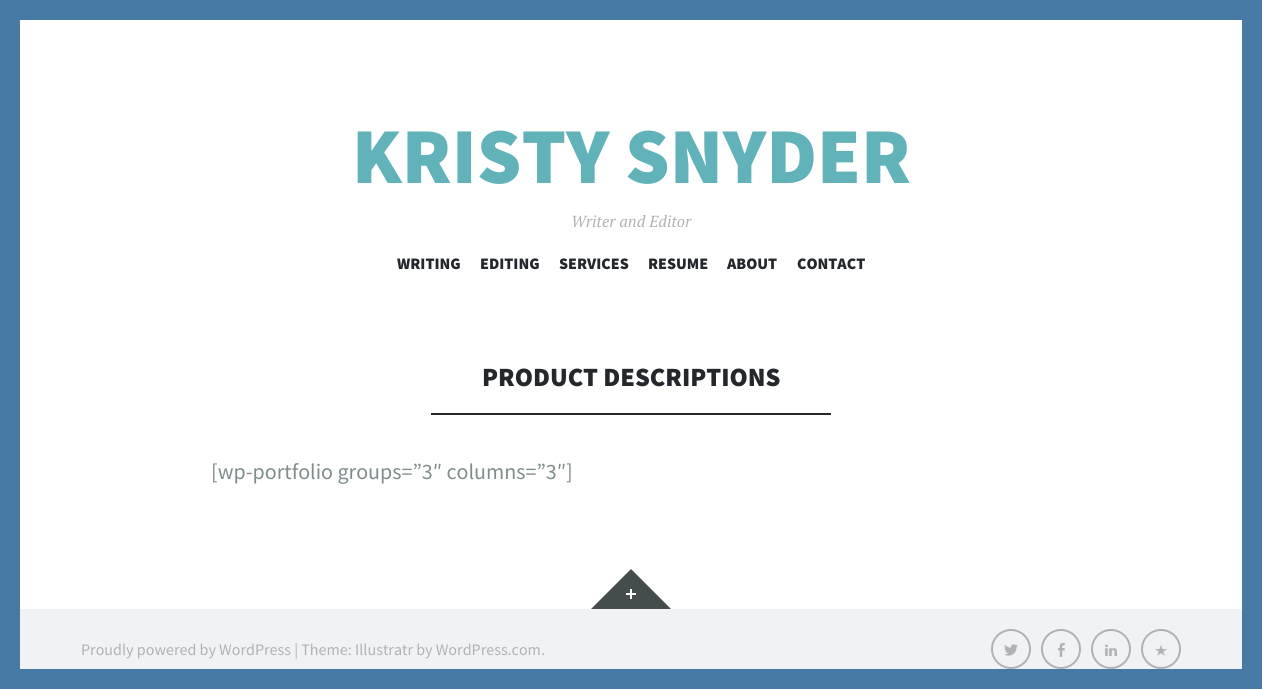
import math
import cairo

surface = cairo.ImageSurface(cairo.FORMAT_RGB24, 1262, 689)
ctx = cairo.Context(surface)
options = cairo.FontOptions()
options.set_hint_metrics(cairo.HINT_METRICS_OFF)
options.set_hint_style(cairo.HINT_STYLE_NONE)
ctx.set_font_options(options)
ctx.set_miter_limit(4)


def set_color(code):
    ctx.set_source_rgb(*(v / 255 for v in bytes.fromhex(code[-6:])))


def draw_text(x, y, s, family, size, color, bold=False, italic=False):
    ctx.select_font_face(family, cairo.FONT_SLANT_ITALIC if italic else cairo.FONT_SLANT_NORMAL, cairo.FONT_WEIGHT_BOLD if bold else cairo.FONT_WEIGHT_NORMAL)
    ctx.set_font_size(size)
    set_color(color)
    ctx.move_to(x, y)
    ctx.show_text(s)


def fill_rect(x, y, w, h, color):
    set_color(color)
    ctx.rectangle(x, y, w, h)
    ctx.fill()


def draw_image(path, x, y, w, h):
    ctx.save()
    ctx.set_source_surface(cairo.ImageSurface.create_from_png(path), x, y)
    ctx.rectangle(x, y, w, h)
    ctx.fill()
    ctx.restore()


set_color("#4679a3")
ctx.paint()
fill_rect(20, 20, 1222, 589, "#ffffff")
draw_text(352, 183, "KRISTY SNYDER", "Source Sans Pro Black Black", 79.25, "#62b2ba")
draw_text(571, 227, "Writer and Editor", "PT Serif", 16.05, "#b1b2b3", italic=True)
draw_text(397, 269, "WRITING", "Source Sans Pro Black Black", 16.05, "#24282d")
draw_text(480, 269, "EDITING", "Source Sans Pro Black Black", 16.05, "#24282d")
draw_text(559, 269, "SERVICES", "Source Sans Pro Black Black", 16.05, "#24282d")
draw_text(648, 269, "RESUME", "Source Sans Pro Black Black", 16.05, "#24282d")
draw_text(727, 269, "ABOUT", "Source Sans Pro Black Black", 16.05, "#24282d")
draw_text(797, 269, "CONTACT", "Source Sans Pro Black Black", 16.05, "#24282d")
draw_text(482, 386, "PRODUCT DESCRIPTIONS", "Source Sans Pro Black Black", 26.4, "#24282d")
fill_rect(431, 413, 400, 2, "#24282d")
draw_text(211, 479, "[wp-portfolio groups=”3″ columns=”3″]", "Source Sans Pro", 22, "#7f8d8c")
set_color("#464d4d")
ctx.new_path()
ctx.move_to(671, 609)
ctx.line_to(591, 609)
ctx.line_to(631, 569)
ctx.close_path()
ctx.fill()
draw_image("assets/img1.png", 626, 589, 10, 10)
fill_rect(20, 609, 1222, 60, "#f1f2f3")
draw_text(81, 655, "Proudly powered by WordPress | Theme: Illustratr by WordPress.com.", "Source Sans Pro", 16.05, "#b1b2b3")
ctx.new_path()
ctx.arc(1011, 649, 19, 0, 2 * math.pi)
ctx.stroke()
draw_image("assets/img2.png", 1004, 644, 14, 12)
ctx.arc(1061, 649, 19, 0, 2 * math.pi)
ctx.stroke()
draw_image("assets/img3.png", 1058, 643, 7, 14)
ctx.arc(1111, 649, 19, 0, 2 * math.pi)
ctx.stroke()
draw_image("assets/img4.png", 1105, 644, 12, 12)
ctx.arc(1161, 649, 19, 0, 2 * math.pi)
ctx.stroke()
draw_image("assets/img5.png", 1155, 645, 12, 11)
surface.write_to_png("output.png")
